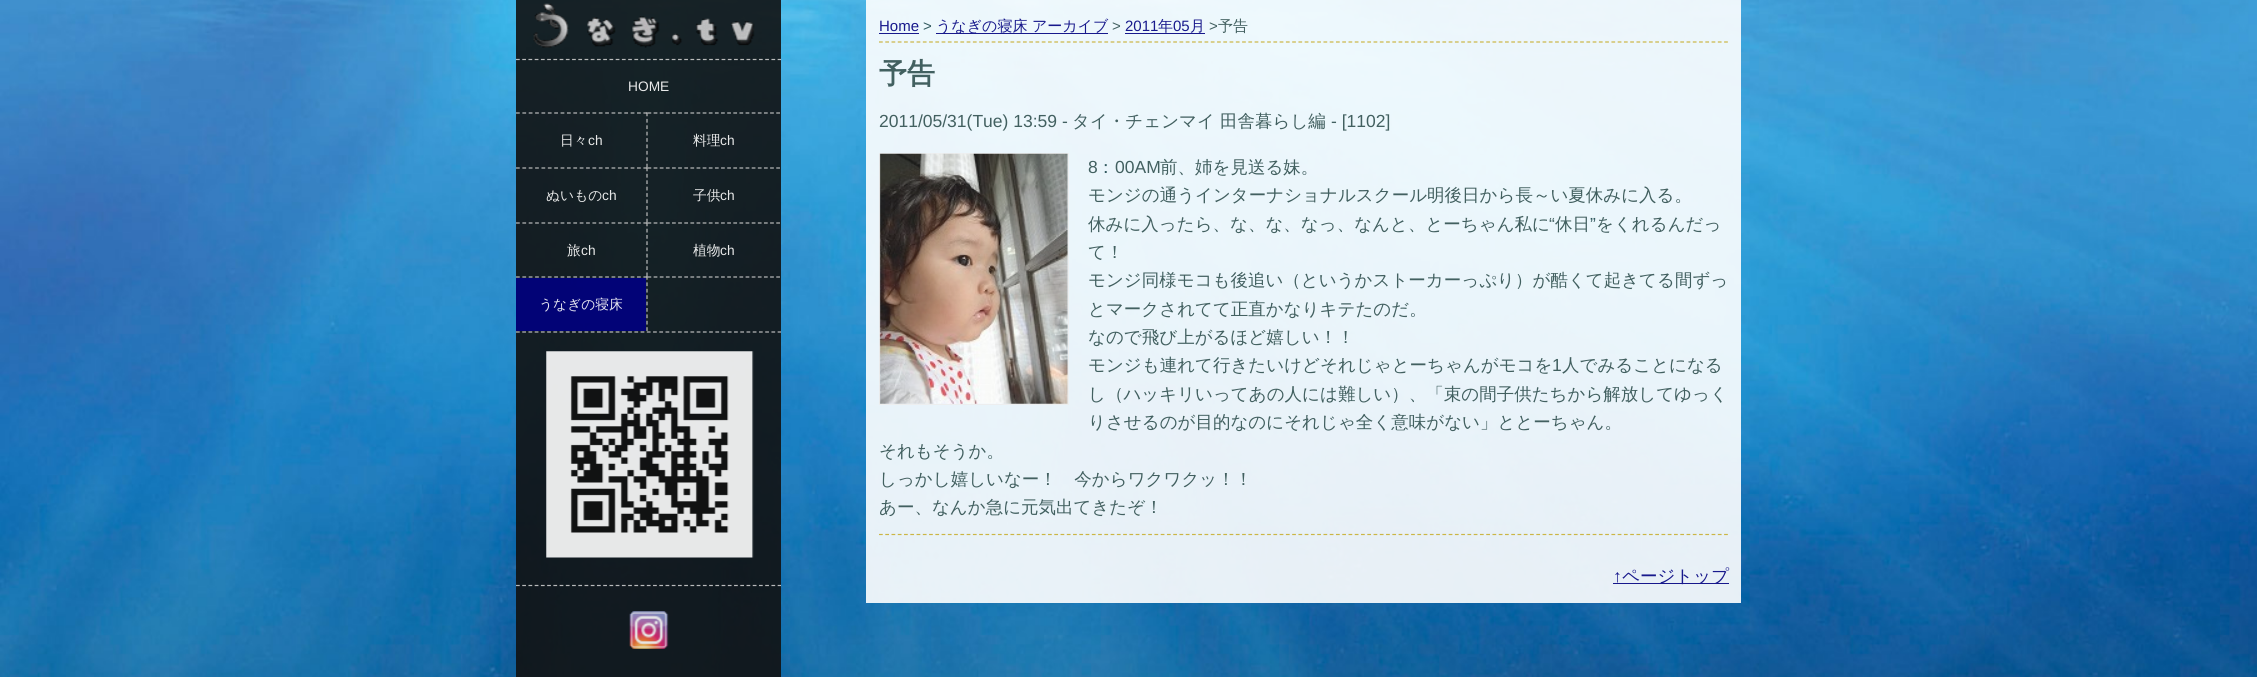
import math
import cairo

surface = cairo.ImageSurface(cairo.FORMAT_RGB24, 2257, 677)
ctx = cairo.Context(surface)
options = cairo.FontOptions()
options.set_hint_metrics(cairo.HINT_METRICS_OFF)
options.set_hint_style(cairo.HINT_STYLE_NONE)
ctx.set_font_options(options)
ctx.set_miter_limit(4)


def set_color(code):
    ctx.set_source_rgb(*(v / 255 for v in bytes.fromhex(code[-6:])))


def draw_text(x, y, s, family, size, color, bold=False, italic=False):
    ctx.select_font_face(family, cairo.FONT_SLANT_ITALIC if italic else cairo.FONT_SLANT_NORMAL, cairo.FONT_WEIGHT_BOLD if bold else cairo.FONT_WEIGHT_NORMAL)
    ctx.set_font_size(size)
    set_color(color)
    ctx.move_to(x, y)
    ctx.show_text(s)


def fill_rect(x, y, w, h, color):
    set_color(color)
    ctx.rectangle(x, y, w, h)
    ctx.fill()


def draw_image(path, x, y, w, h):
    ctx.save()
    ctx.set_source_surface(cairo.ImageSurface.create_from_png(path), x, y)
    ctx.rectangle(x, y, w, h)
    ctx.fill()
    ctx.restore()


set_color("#ffffff")
ctx.paint()
draw_image("assets/img1.png", 0, 0, 2257, 677)
ctx.set_source_rgba(0.067, 0.067, 0.067, 0.9)
ctx.rectangle(516, 0, 265, 677)
ctx.fill()
draw_image("assets/img2.png", 533, 3, 222, 45)
ctx.new_path()
ctx.move_to(516, 59.5)
ctx.line_to(781, 59.5)
set_color("#babbbb")
ctx.set_line_width(1.2)
ctx.set_dash([3.75, 2.48])
ctx.stroke()
draw_text(628, 91, "HOME", "Liberation Sans", 13.75, "#e8e9e9")
ctx.new_path()
ctx.move_to(516, 113)
ctx.line_to(647.5, 113)
ctx.set_source_rgba(0.8, 0.8, 0.8, 0.9)
ctx.set_dash([3.75, 2.62])
ctx.stroke()
ctx.new_path()
ctx.move_to(647, 112.5)
ctx.line_to(647, 167.5)
ctx.set_dash([3.75, 2.65])
ctx.stroke()
draw_text(560, 145, "日々", "WenQuanYi Zen Hei Medium", 13.75, "#e8e9e9")
draw_text(588, 145, "ch", "Liberation Sans", 13.75, "#e8e9e9")
ctx.new_path()
ctx.move_to(647.5, 113)
ctx.line_to(780, 113)
set_color("#babbbb")
ctx.set_dash([3.75, 2.38])
ctx.stroke()
draw_text(693, 145, "料理", "WenQuanYi Zen Hei Medium", 13.75, "#e8e9e9")
draw_text(720, 145, "ch", "Liberation Sans", 13.75, "#e8e9e9")
ctx.new_path()
ctx.move_to(516, 168)
ctx.line_to(647.5, 168)
ctx.set_source_rgba(0.8, 0.8, 0.8, 0.9)
ctx.set_dash([3.75, 2.62])
ctx.stroke()
ctx.new_path()
ctx.move_to(647, 167.5)
ctx.line_to(647, 222.5)
ctx.set_dash([3.75, 2.65])
ctx.stroke()
draw_text(546, 200, "ぬいもの", "WenQuanYi Zen Hei Medium", 13.75, "#e8e9e9")
draw_text(602, 200, "ch", "Liberation Sans", 13.75, "#e8e9e9")
ctx.new_path()
ctx.move_to(647.5, 168)
ctx.line_to(780, 168)
ctx.set_source_rgba(0.8, 0.8, 0.8, 0.9)
ctx.set_dash([3.75, 2.38])
ctx.stroke()
draw_text(693, 200, "子供", "WenQuanYi Zen Hei Medium", 13.75, "#e8e9e9")
draw_text(720, 200, "ch", "Liberation Sans", 13.75, "#e8e9e9")
ctx.new_path()
ctx.move_to(516, 223)
ctx.line_to(647.5, 223)
ctx.set_source_rgba(0.8, 0.8, 0.8, 0.9)
ctx.set_dash([3.75, 2.62])
ctx.stroke()
ctx.new_path()
ctx.move_to(647, 222.5)
ctx.line_to(647, 276)
ctx.set_dash([3.75, 2.5])
ctx.stroke()
draw_text(567, 255, "旅", "WenQuanYi Zen Hei Medium", 13.75, "#e8e9e9")
draw_text(581, 255, "ch", "Liberation Sans", 13.75, "#e8e9e9")
ctx.new_path()
ctx.move_to(647.5, 223)
ctx.line_to(780, 223)
ctx.set_source_rgba(0.8, 0.8, 0.8, 0.9)
ctx.set_dash([3.75, 2.38])
ctx.stroke()
draw_text(693, 255, "植物", "WenQuanYi Zen Hei Medium", 13.75, "#e8e9e9")
draw_text(720, 255, "ch", "Liberation Sans", 13.75, "#e8e9e9")
ctx.new_path()
ctx.move_to(516, 277)
ctx.line_to(647.5, 277)
ctx.set_source_rgba(0.8, 0.8, 0.8, 0.9)
ctx.set_dash([3.75, 2.62])
ctx.stroke()
ctx.new_path()
ctx.move_to(647, 276)
ctx.line_to(647, 331)
ctx.set_dash([3.75, 2.65])
ctx.stroke()
ctx.new_path()
ctx.move_to(647.5, 277)
ctx.line_to(780, 277)
ctx.set_dash([3.75, 2.38])
ctx.stroke()
ctx.set_source_rgba(0, 0, 0.502, 0.9)
ctx.rectangle(516, 278, 130, 53)
ctx.fill()
draw_text(539, 309, "うなぎの寝床", "WenQuanYi Zen Hei Medium", 13.75, "#e6e6f1")
ctx.new_path()
ctx.move_to(516, 332)
ctx.line_to(781, 332)
ctx.set_source_rgba(0.8, 0.8, 0.8, 0.9)
ctx.set_dash([3.75, 2.48])
ctx.stroke()
draw_image("assets/img3.png", 546, 351, 208, 207)
ctx.new_path()
ctx.move_to(516, 585.5)
ctx.line_to(781, 585.5)
set_color("#b9babb")
ctx.stroke()
draw_image("assets/img4.png", 629, 611, 40, 38)
ctx.set_source_rgba(1, 1, 1, 0.9)
ctx.rectangle(866, 0, 875, 603)
ctx.fill()
ctx.new_path()
ctx.move_to(879, 42)
ctx.line_to(1729, 42)
ctx.set_source_rgba(0.784, 0.69, 0.196, 0.9)
ctx.set_dash([3.75, 2.51])
ctx.stroke()
draw_text(879, 31, "Home", "Liberation Sans", 15, "#18198c")
fill_rect(879, 33, 40, 1, "#18198c")
draw_text(923, 31, ">", "Liberation Sans", 15, "#31595e")
fill_rect(936, 33, 172, 1, "#18198c")
draw_text(936, 31, "うなぎの寝床 アーカイブ", "WenQuanYi Zen Hei Medium", 15, "#18198c")
draw_text(1112, 31, ">", "Liberation Sans", 15, "#426060")
draw_text(1125, 31, "2011", "Liberation Sans", 15, "#18198c")
fill_rect(1125, 33, 80, 1, "#18198c")
draw_text(1158, 31, "年", "WenQuanYi Zen Hei Medium", 15, "#18198c")
draw_text(1173, 31, "05", "Liberation Sans", 15, "#18198c")
draw_text(1190, 31, "月", "WenQuanYi Zen Hei Medium", 15, "#18198c")
draw_text(1209, 31, ">", "Liberation Sans", 15, "#426060")
draw_text(1218, 31, "予告", "WenQuanYi Zen Hei Medium", 15, "#426060")
draw_text(879, 83, "予告", "WenQuanYi Zen Hei", 28, "#426060", bold=True)
draw_text(879, 127, "2011/05/31(Tue) 13:59 -", "Liberation Sans", 17.5, "#426060")
draw_text(1072, 127, "タイ・チェンマイ", "WenQuanYi Zen Hei Medium", 17.5, "#426060")
draw_text(1220, 127, "田舎暮らし編", "WenQuanYi Zen Hei Medium", 17.5, "#426060")
draw_text(1331, 127, "- [1102]", "Liberation Sans", 17.5, "#426060")
ctx.rectangle(879.5, 153.5, 189, 251)
ctx.set_source_rgba(0.933, 0.933, 0.933, 0.9)
ctx.set_line_width(1)
ctx.set_dash([])
ctx.stroke()
draw_image("assets/img5.png", 879, 153, 189, 251)
draw_text(1088, 173, "8", "Liberation Sans", 17.5, "#426060")
draw_text(1097, 173, "：", "WenQuanYi Zen Hei Medium", 17.5, "#31595e")
draw_text(1115, 173, "00AM", "Liberation Sans", 17.5, "#426060")
draw_text(1160, 173, "前、姉を見送る妹。", "WenQuanYi Zen Hei Medium", 17.5, "#426060")
draw_text(1088, 201, "モンジの通うインターナショナルスクール明後日から長～い夏休みに入る。", "WenQuanYi Zen Hei Medium", 17.5, "#426060")
draw_text(1088, 230, "休みに入ったら、な、な、なっ、なんと、とーちゃん私に", "WenQuanYi Zen Hei Medium", 17.5, "#426060")
draw_text(1549, 230, "“", "Liberation Sans", 17.5, "#426060")
draw_text(1555, 230, "休日", "WenQuanYi Zen Hei Medium", 17.5, "#426060")
draw_text(1590, 230, "”", "Liberation Sans", 17.5, "#31595e")
draw_text(1596, 230, "をくれるんだっ", "WenQuanYi Zen Hei Medium", 17.5, "#426060")
draw_text(1088, 258, "て！", "WenQuanYi Zen Hei Medium", 17.5, "#426060")
draw_text(1088, 286, "モンジ同様モコも後追い（というかストーカーっぷり）が酷くて起きてる間ずっ", "WenQuanYi Zen Hei Medium", 17.5, "#426060")
draw_text(1088, 315, "とマークされてて正直かなりキテたのだ。", "WenQuanYi Zen Hei Medium", 17.5, "#426060")
draw_text(1088, 343, "なので飛び上がるほど嬉しい！！", "WenQuanYi Zen Hei Medium", 17.5, "#426060")
draw_text(1088, 371, "モンジも連れて行きたいけどそれじゃとーちゃんがモコを", "WenQuanYi Zen Hei Medium", 17.5, "#426060")
draw_text(1552, 371, "1", "Liberation Sans", 17.5, "#426060")
draw_text(1562, 371, "人でみることになる", "WenQuanYi Zen Hei Medium", 17.5, "#426060")
draw_text(1088, 400, "し（ハッキリいってあの人には難しい）、「束の間子供たちから解放してゆっく", "WenQuanYi Zen Hei Medium", 17.5, "#426060")
draw_text(1088, 428, "りさせるのが目的なのにそれじゃ全く意味がない」ととーちゃん。", "WenQuanYi Zen Hei Medium", 17.5, "#426060")
draw_text(879, 457, "それもそうか。", "WenQuanYi Zen Hei Medium", 17.5, "#426060")
draw_text(879, 485, "しっかし嬉しいなー！　今からワクワクッ！！", "WenQuanYi Zen Hei Medium", 17.5, "#426060")
draw_text(879, 513, "あー、なんか急に元気出てきたぞ！", "WenQuanYi Zen Hei Medium", 17.5, "#426060")
ctx.new_path()
ctx.move_to(879, 534.5)
ctx.line_to(1729, 534.5)
ctx.set_source_rgba(0.784, 0.69, 0.196, 0.9)
ctx.set_line_width(1.2)
ctx.set_dash([3.75, 2.51])
ctx.stroke()
draw_text(1613, 582, "↑", "Liberation Sans", 17.5, "#18198c")
fill_rect(1613, 583, 116, 1, "#17188c")
draw_text(1622, 582, "ページトップ", "WenQuanYi Zen Hei Medium", 17.5, "#18198c")
surface.write_to_png("output.png")
